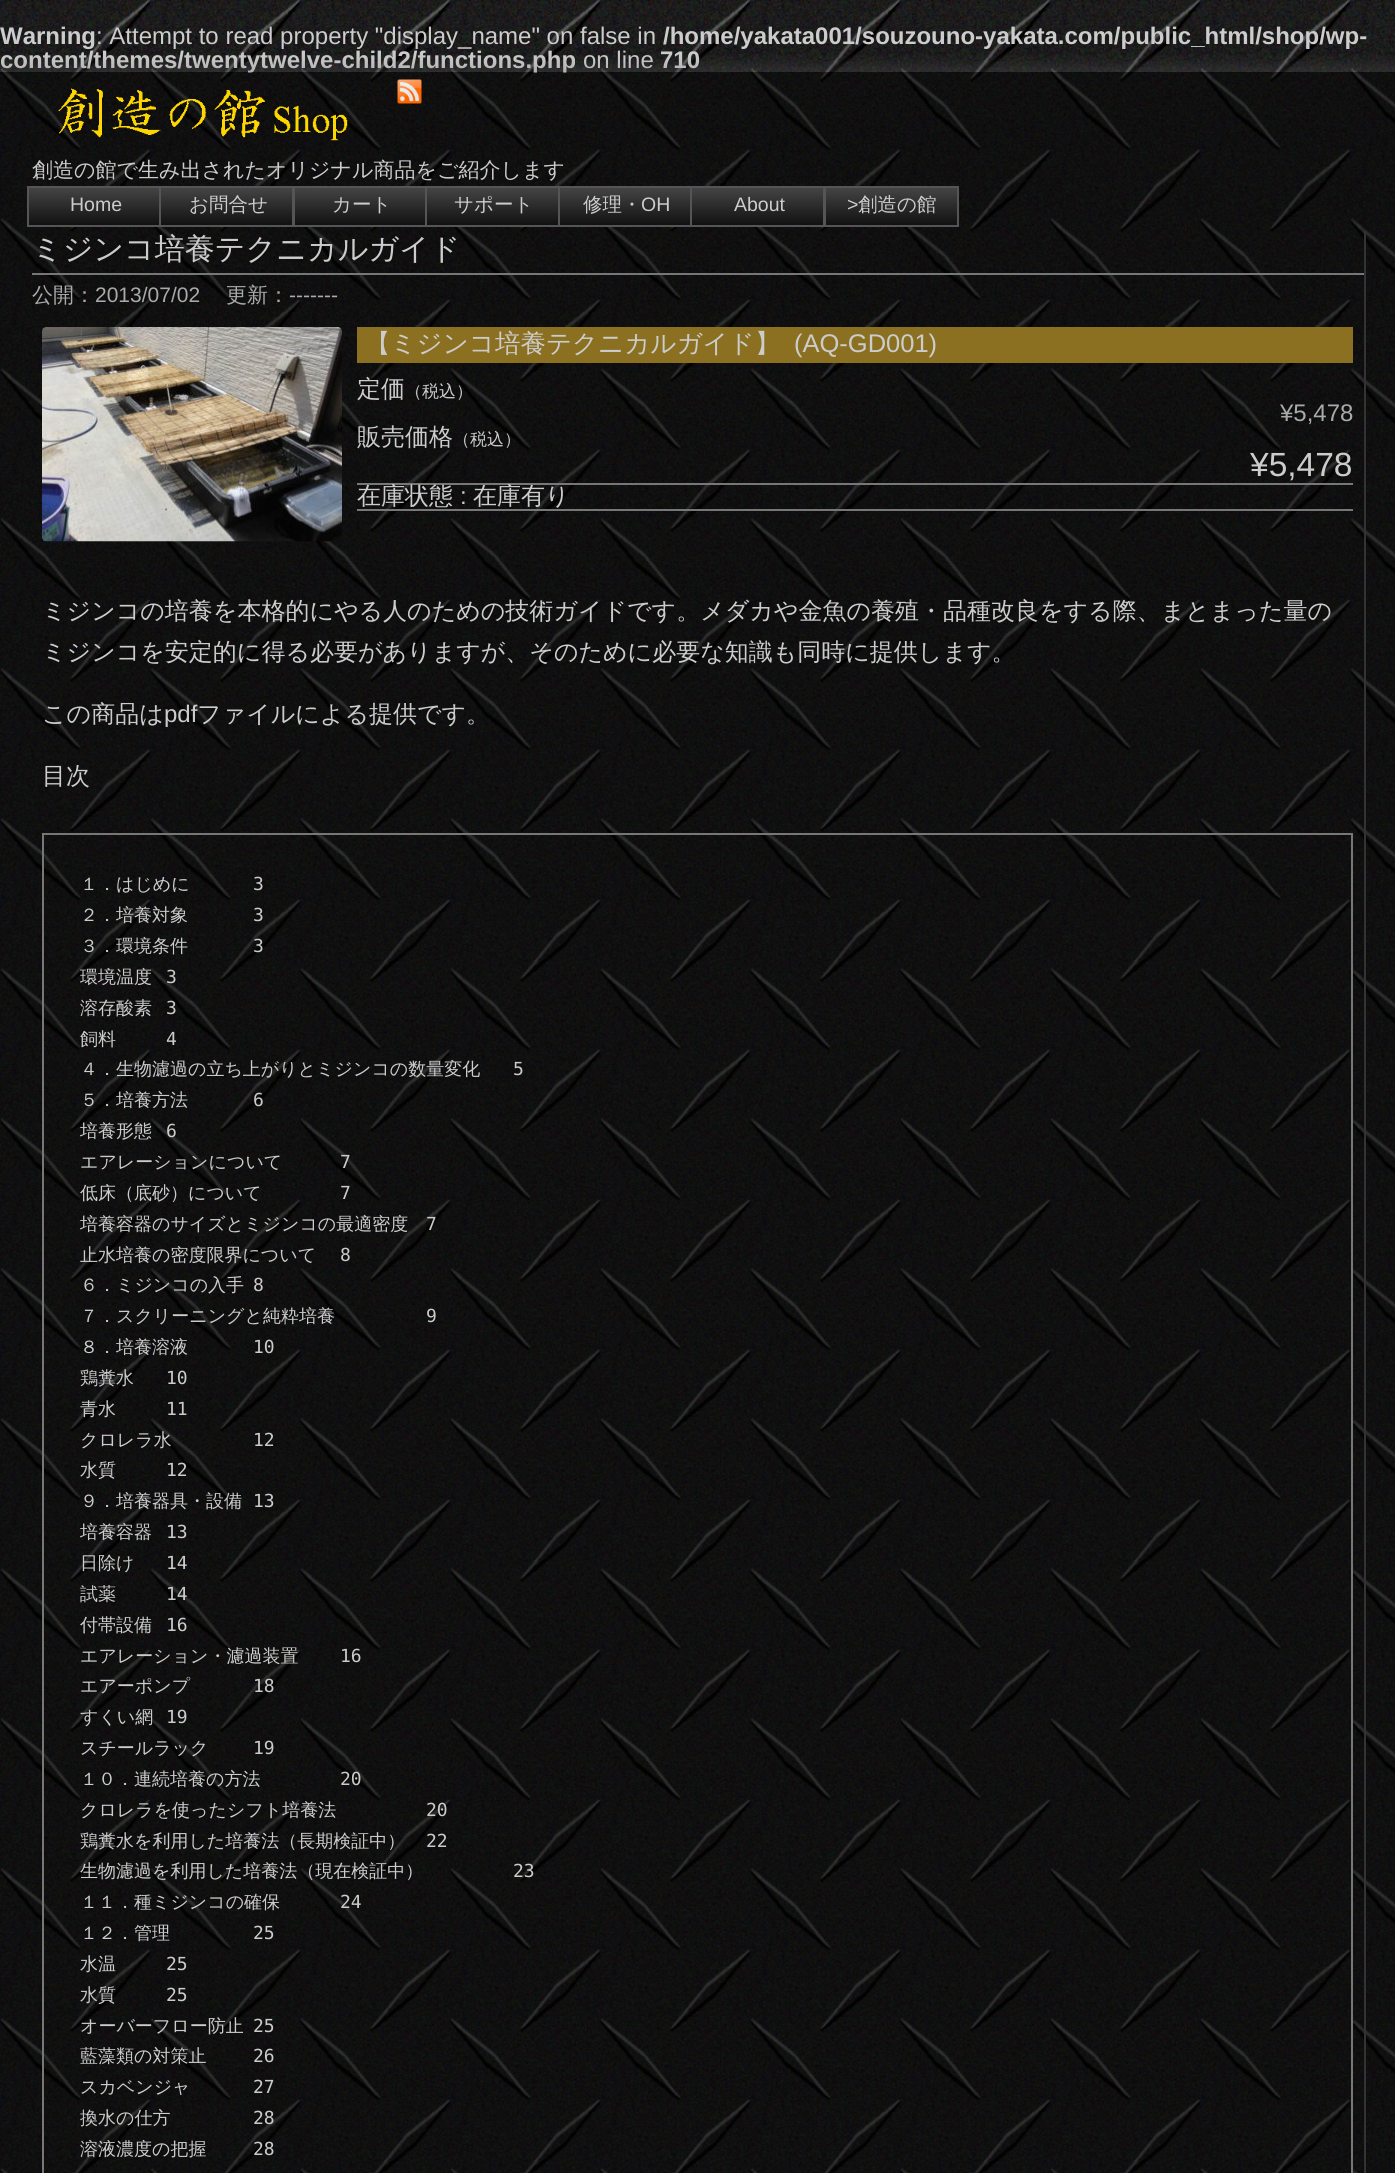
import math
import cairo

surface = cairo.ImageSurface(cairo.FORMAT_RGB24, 1395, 2173)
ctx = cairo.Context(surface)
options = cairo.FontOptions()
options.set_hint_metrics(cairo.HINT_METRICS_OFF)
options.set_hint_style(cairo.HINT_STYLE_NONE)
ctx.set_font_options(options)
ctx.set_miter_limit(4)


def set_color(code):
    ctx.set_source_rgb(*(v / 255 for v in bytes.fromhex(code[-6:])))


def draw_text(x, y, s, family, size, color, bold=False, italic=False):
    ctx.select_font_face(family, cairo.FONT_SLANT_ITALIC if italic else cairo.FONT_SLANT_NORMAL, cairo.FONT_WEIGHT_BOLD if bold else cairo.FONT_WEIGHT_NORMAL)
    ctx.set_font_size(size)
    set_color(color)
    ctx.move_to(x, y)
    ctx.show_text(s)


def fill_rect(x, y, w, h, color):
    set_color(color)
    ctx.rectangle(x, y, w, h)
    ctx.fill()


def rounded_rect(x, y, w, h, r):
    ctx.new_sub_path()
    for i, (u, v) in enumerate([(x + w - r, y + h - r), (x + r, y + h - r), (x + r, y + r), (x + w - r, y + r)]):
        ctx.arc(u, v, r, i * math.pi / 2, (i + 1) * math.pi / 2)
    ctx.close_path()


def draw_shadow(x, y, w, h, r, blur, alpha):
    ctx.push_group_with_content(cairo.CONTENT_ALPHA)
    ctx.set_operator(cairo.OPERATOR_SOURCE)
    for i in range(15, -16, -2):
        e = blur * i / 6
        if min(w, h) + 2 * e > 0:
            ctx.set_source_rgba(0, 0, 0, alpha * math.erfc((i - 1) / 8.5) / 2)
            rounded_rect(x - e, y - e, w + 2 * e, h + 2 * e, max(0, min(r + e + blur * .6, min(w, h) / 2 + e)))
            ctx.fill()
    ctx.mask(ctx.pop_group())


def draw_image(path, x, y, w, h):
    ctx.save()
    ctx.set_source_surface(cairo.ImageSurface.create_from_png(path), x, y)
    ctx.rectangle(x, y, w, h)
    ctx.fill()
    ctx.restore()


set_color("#ffffff")
ctx.paint()
draw_image("assets/img1.png", 0, 0, 1395, 2173)
draw_text(0, 44, "Warning", "Liberation Sans", 24, "#cccccc", bold=True)
draw_text(96, 44, ": Attempt to read property \"display_name\" on false in", "Liberation Sans", 24, "#cccccc")
draw_text(663, 44, "/home/yakata001/souzouno-yakata.com/public_html/shop/wp-", "Liberation Sans", 24, "#cccccc", bold=True)
draw_text(0, 68, "content/themes/twentytwelve-child2/functions.php", "Liberation Sans", 24, "#cccccc", bold=True)
draw_text(583, 68, "on line", "Liberation Sans", 24, "#cccccc")
draw_text(660, 68, "710", "Liberation Sans", 24, "#cccccc", bold=True)
ctx.save()
ctx.rectangle(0, 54, 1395, 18)
ctx.clip()
set_color("#646464")
draw_shadow(-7, 65, 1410, 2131, 0, 7.5, 0.3)
ctx.restore()
ctx.set_source_rgba(0.02, 0.02, 0.02, 0.5)
ctx.rectangle(0, 72, 1395, 2101)
ctx.fill()
draw_image("assets/img2.png", 58, 88, 290, 53)
draw_image("assets/img3.png", 397, 79, 25, 25)
draw_text(32, 177, "創造の館で生み出されたオリジナル商品をご紹介します", "WenQuanYi Zen Hei Medium", 21, "#cccccc")
gradient = cairo.LinearGradient(29, 188, 29, 225)
gradient.add_color_stop_rgba(0, 0.267, 0.267, 0.267, 1)
gradient.add_color_stop_rgba(1, 0.067, 0.067, 0.067, 1)
ctx.set_source(gradient)
ctx.rectangle(29, 188, 130, 37)
ctx.fill()
ctx.rectangle(28, 187, 133, 39)
set_color("#555555")
ctx.stroke()
draw_text(70, 211, "Home", "Liberation Sans", 19.5, "#cccccc")
gradient = cairo.LinearGradient(161, 188, 161, 225)
gradient.add_color_stop_rgba(0, 0.267, 0.267, 0.267, 1)
gradient.add_color_stop_rgba(1, 0.067, 0.067, 0.067, 1)
ctx.set_source(gradient)
ctx.rectangle(161, 188, 131, 37)
ctx.fill()
ctx.rectangle(160, 187, 133, 39)
set_color("#555555")
ctx.stroke()
draw_text(189, 211, "お問合せ", "WenQuanYi Zen Hei Medium", 19.5, "#cccccc")
gradient = cairo.LinearGradient(294, 188, 294, 225)
gradient.add_color_stop_rgba(0, 0.267, 0.267, 0.267, 1)
gradient.add_color_stop_rgba(1, 0.067, 0.067, 0.067, 1)
ctx.set_source(gradient)
ctx.rectangle(295, 188, 130, 37)
ctx.fill()
ctx.rectangle(294, 187, 133, 39)
set_color("#555555")
ctx.stroke()
draw_text(332, 211, "カート", "WenQuanYi Zen Hei Medium", 19.5, "#cccccc")
gradient = cairo.LinearGradient(426, 188, 426, 225)
gradient.add_color_stop_rgba(0, 0.267, 0.267, 0.267, 1)
gradient.add_color_stop_rgba(1, 0.067, 0.067, 0.067, 1)
ctx.set_source(gradient)
ctx.rectangle(427, 188, 131, 37)
ctx.fill()
ctx.rectangle(426, 187, 133, 39)
set_color("#555555")
ctx.stroke()
draw_text(454, 211, "サポート", "WenQuanYi Zen Hei Medium", 19.5, "#cccccc")
gradient = cairo.LinearGradient(560, 188, 560, 225)
gradient.add_color_stop_rgba(0, 0.267, 0.267, 0.267, 1)
gradient.add_color_stop_rgba(1, 0.067, 0.067, 0.067, 1)
ctx.set_source(gradient)
ctx.rectangle(560, 188, 130, 37)
ctx.fill()
ctx.rectangle(559, 187, 133, 39)
set_color("#555555")
ctx.stroke()
draw_text(583, 211, "修理・", "WenQuanYi Zen Hei Medium", 19.5, "#cccccc")
draw_text(641, 211, "OH", "Liberation Sans", 19.5, "#cccccc")
gradient = cairo.LinearGradient(692, 188, 692, 225)
gradient.add_color_stop_rgba(0, 0.267, 0.267, 0.267, 1)
gradient.add_color_stop_rgba(1, 0.067, 0.067, 0.067, 1)
ctx.set_source(gradient)
ctx.rectangle(692, 188, 131, 37)
ctx.fill()
ctx.rectangle(691, 187, 133, 39)
set_color("#555555")
ctx.stroke()
draw_text(734, 211, "About", "Liberation Sans", 19.5, "#cccccc")
gradient = cairo.LinearGradient(825, 188, 825, 225)
gradient.add_color_stop_rgba(0, 0.267, 0.267, 0.267, 1)
gradient.add_color_stop_rgba(1, 0.067, 0.067, 0.067, 1)
ctx.set_source(gradient)
ctx.rectangle(826, 188, 131, 37)
ctx.fill()
ctx.rectangle(825, 187, 133, 39)
set_color("#555555")
ctx.stroke()
draw_text(847, 211, ">", "Liberation Sans", 19.5, "#cccccc")
draw_text(858, 211, "創造の館", "WenQuanYi Zen Hei Medium", 19.5, "#cccccc")
fill_rect(1364, 231, 2, 1942, "#333333")
fill_rect(32, 273, 1332, 2, "#777777")
draw_text(32, 259, "ミジンコ培養テクニカルガイド", "WenQuanYi Zen Hei Medium", 30, "#cccccc")
draw_text(32, 302, "公開：", "WenQuanYi Zen Hei Medium", 21, "#aaaaaa")
draw_text(95, 302, "2013/07/02", "Liberation Sans", 21, "#aaaaaa")
draw_text(226, 302, "更新：", "WenQuanYi Zen Hei Medium", 21, "#aaaaaa")
draw_text(289, 302, "-------", "Liberation Sans", 21, "#aaaaaa")
draw_image("assets/img4.png", 42, 327, 300, 215)
fill_rect(357, 327, 996, 36, "#8a7020")
draw_text(365, 352, "【ミジンコ培養テクニカルガイド】", "WenQuanYi Zen Hei Medium", 25.5, "#cccccc")
draw_text(794, 352, "(AQ-GD001)", "Liberation Sans", 25.5, "#cccccc")
fill_rect(357, 483, 996, 2, "#777777")
draw_text(357, 397, "定価", "WenQuanYi Zen Hei Medium", 24, "#cccccc")
draw_text(405, 397, "（税込）", "WenQuanYi Zen Hei Medium", 17, "#cccccc")
draw_text(1280, 421, "¥5,478", "Liberation Sans", 24, "#aaaaaa")
draw_text(357, 445, "販売価格", "WenQuanYi Zen Hei Medium", 24, "#cccccc")
draw_text(453, 445, "（税込）", "WenQuanYi Zen Hei Medium", 17, "#cccccc")
draw_text(1250, 476, "¥5,478", "Liberation Sans", 33.5, "#cccccc")
fill_rect(357, 509, 996, 2, "#777777")
draw_text(357, 504, "在庫状態", "WenQuanYi Zen Hei Medium", 24, "#cccccc")
draw_text(460, 504, ":", "Liberation Sans", 24, "#cccccc")
draw_text(473, 504, "在庫有り", "WenQuanYi Zen Hei Medium", 24, "#cccccc")
draw_text(42, 619, "ミジンコの培養を本格的にやる人のための技術ガイドです。メダカや金魚の養殖・品種改良をする際、まとまった量の", "WenQuanYi Zen Hei Medium", 24, "#cccccc")
draw_text(42, 660, "ミジンコを安定的に得る必要がありますが、そのために必要な知識も同時に提供します。", "WenQuanYi Zen Hei Medium", 24, "#cccccc")
draw_text(42, 722, "この商品は", "WenQuanYi Zen Hei Medium", 24, "#cccccc")
draw_text(164, 722, "pdf", "Liberation Sans", 24, "#cccccc")
draw_text(197, 722, "ファイルによる提供です。", "WenQuanYi Zen Hei Medium", 24, "#cccccc")
draw_text(42, 784, "目次", "WenQuanYi Zen Hei Medium", 24, "#cccccc")
ctx.rectangle(43, 834, 1309, 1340)
set_color("#777777")
ctx.stroke()
draw_text(80, 890, "１．はじめに", "WenQuanYi Zen Hei Medium", 18, "#cccccc")
draw_text(253, 890, "3", "DejaVu Sans Mono", 18, "#cccccc")
draw_text(80, 921, "２．培養対象", "WenQuanYi Zen Hei Medium", 18, "#cccccc")
draw_text(253, 921, "3", "DejaVu Sans Mono", 18, "#cccccc")
draw_text(80, 952, "３．環境条件", "WenQuanYi Zen Hei Medium", 18, "#cccccc")
draw_text(253, 952, "3", "DejaVu Sans Mono", 18, "#cccccc")
draw_text(80, 983, "環境温度", "WenQuanYi Zen Hei Medium", 18, "#cccccc")
draw_text(166, 983, "3", "DejaVu Sans Mono", 18, "#cccccc")
draw_text(80, 1014, "溶存酸素", "WenQuanYi Zen Hei Medium", 18, "#cccccc")
draw_text(166, 1014, "3", "DejaVu Sans Mono", 18, "#cccccc")
draw_text(80, 1045, "飼料", "WenQuanYi Zen Hei Medium", 18, "#cccccc")
draw_text(166, 1045, "4", "DejaVu Sans Mono", 18, "#cccccc")
draw_text(80, 1075, "４．生物濾過の立ち上がりとミジンコの数量変化", "WenQuanYi Zen Hei Medium", 18, "#cccccc")
draw_text(513, 1075, "5", "DejaVu Sans Mono", 18, "#cccccc")
draw_text(80, 1106, "５．培養方法", "WenQuanYi Zen Hei Medium", 18, "#cccccc")
draw_text(253, 1106, "6", "DejaVu Sans Mono", 18, "#cccccc")
draw_text(80, 1137, "培養形態", "WenQuanYi Zen Hei Medium", 18, "#cccccc")
draw_text(166, 1137, "6", "DejaVu Sans Mono", 18, "#cccccc")
draw_text(80, 1168, "エアレーションについて", "WenQuanYi Zen Hei Medium", 18, "#cccccc")
draw_text(340, 1168, "7", "DejaVu Sans Mono", 18, "#cccccc")
draw_text(80, 1199, "低床（底砂）について", "WenQuanYi Zen Hei Medium", 18, "#cccccc")
draw_text(340, 1199, "7", "DejaVu Sans Mono", 18, "#cccccc")
draw_text(80, 1230, "培養容器のサイズとミジンコの最適密度", "WenQuanYi Zen Hei Medium", 18, "#cccccc")
draw_text(426, 1230, "7", "DejaVu Sans Mono", 18, "#cccccc")
draw_text(80, 1261, "止水培養の密度限界について", "WenQuanYi Zen Hei Medium", 18, "#cccccc")
draw_text(340, 1261, "8", "DejaVu Sans Mono", 18, "#cccccc")
draw_text(80, 1291, "６．ミジンコの入手", "WenQuanYi Zen Hei Medium", 18, "#cccccc")
draw_text(253, 1291, "8", "DejaVu Sans Mono", 18, "#cccccc")
draw_text(80, 1322, "７．スクリーニングと純粋培養", "WenQuanYi Zen Hei Medium", 18, "#cccccc")
draw_text(426, 1322, "9", "DejaVu Sans Mono", 18, "#cccccc")
draw_text(80, 1353, "８．培養溶液", "WenQuanYi Zen Hei Medium", 18, "#cccccc")
draw_text(253, 1353, "10", "DejaVu Sans Mono", 18, "#cccccc")
draw_text(80, 1384, "鶏糞水", "WenQuanYi Zen Hei Medium", 18, "#cccccc")
draw_text(166, 1384, "10", "DejaVu Sans Mono", 18, "#cccccc")
draw_text(80, 1415, "青水", "WenQuanYi Zen Hei Medium", 18, "#cccccc")
draw_text(166, 1415, "11", "DejaVu Sans Mono", 18, "#cccccc")
draw_text(80, 1446, "クロレラ水", "WenQuanYi Zen Hei Medium", 18, "#cccccc")
draw_text(253, 1446, "12", "DejaVu Sans Mono", 18, "#cccccc")
draw_text(80, 1476, "水質", "WenQuanYi Zen Hei Medium", 18, "#cccccc")
draw_text(166, 1476, "12", "DejaVu Sans Mono", 18, "#cccccc")
draw_text(80, 1507, "９．培養器具・設備", "WenQuanYi Zen Hei Medium", 18, "#cccccc")
draw_text(253, 1507, "13", "DejaVu Sans Mono", 18, "#cccccc")
draw_text(80, 1538, "培養容器", "WenQuanYi Zen Hei Medium", 18, "#cccccc")
draw_text(166, 1538, "13", "DejaVu Sans Mono", 18, "#cccccc")
draw_text(80, 1569, "日除け", "WenQuanYi Zen Hei Medium", 18, "#cccccc")
draw_text(166, 1569, "14", "DejaVu Sans Mono", 18, "#cccccc")
draw_text(80, 1600, "試薬", "WenQuanYi Zen Hei Medium", 18, "#cccccc")
draw_text(166, 1600, "14", "DejaVu Sans Mono", 18, "#cccccc")
draw_text(80, 1631, "付帯設備", "WenQuanYi Zen Hei Medium", 18, "#cccccc")
draw_text(166, 1631, "16", "DejaVu Sans Mono", 18, "#cccccc")
draw_text(80, 1662, "エアレーション・濾過装置", "WenQuanYi Zen Hei Medium", 18, "#cccccc")
draw_text(340, 1662, "16", "DejaVu Sans Mono", 18, "#cccccc")
draw_text(80, 1692, "エアーポンプ", "WenQuanYi Zen Hei Medium", 18, "#cccccc")
draw_text(253, 1692, "18", "DejaVu Sans Mono", 18, "#cccccc")
draw_text(80, 1723, "すくい網", "WenQuanYi Zen Hei Medium", 18, "#cccccc")
draw_text(166, 1723, "19", "DejaVu Sans Mono", 18, "#cccccc")
draw_text(80, 1754, "スチールラック", "WenQuanYi Zen Hei Medium", 18, "#cccccc")
draw_text(253, 1754, "19", "DejaVu Sans Mono", 18, "#cccccc")
draw_text(80, 1785, "１０．連続培養の方法", "WenQuanYi Zen Hei Medium", 18, "#cccccc")
draw_text(340, 1785, "20", "DejaVu Sans Mono", 18, "#cccccc")
draw_text(80, 1816, "クロレラを使ったシフト培養法", "WenQuanYi Zen Hei Medium", 18, "#cccccc")
draw_text(426, 1816, "20", "DejaVu Sans Mono", 18, "#cccccc")
draw_text(80, 1847, "鶏糞水を利用した培養法（長期検証中）", "WenQuanYi Zen Hei Medium", 18, "#cccccc")
draw_text(426, 1847, "22", "DejaVu Sans Mono", 18, "#cccccc")
draw_text(80, 1877, "生物濾過を利用した培養法（現在検証中）", "WenQuanYi Zen Hei Medium", 18, "#cccccc")
draw_text(513, 1877, "23", "DejaVu Sans Mono", 18, "#cccccc")
draw_text(80, 1908, "１１．種ミジンコの確保", "WenQuanYi Zen Hei Medium", 18, "#cccccc")
draw_text(340, 1908, "24", "DejaVu Sans Mono", 18, "#cccccc")
draw_text(80, 1939, "１２．管理", "WenQuanYi Zen Hei Medium", 18, "#cccccc")
draw_text(253, 1939, "25", "DejaVu Sans Mono", 18, "#cccccc")
draw_text(80, 1970, "水温", "WenQuanYi Zen Hei Medium", 18, "#cccccc")
draw_text(166, 1970, "25", "DejaVu Sans Mono", 18, "#cccccc")
draw_text(80, 2001, "水質", "WenQuanYi Zen Hei Medium", 18, "#cccccc")
draw_text(166, 2001, "25", "DejaVu Sans Mono", 18, "#cccccc")
draw_text(80, 2032, "オーバーフロー防止", "WenQuanYi Zen Hei Medium", 18, "#cccccc")
draw_text(253, 2032, "25", "DejaVu Sans Mono", 18, "#cccccc")
draw_text(80, 2062, "藍藻類の対策止", "WenQuanYi Zen Hei Medium", 18, "#cccccc")
draw_text(253, 2062, "26", "DejaVu Sans Mono", 18, "#cccccc")
draw_text(80, 2093, "スカベンジャ", "WenQuanYi Zen Hei Medium", 18, "#cccccc")
draw_text(253, 2093, "27", "DejaVu Sans Mono", 18, "#cccccc")
draw_text(80, 2124, "換水の仕方", "WenQuanYi Zen Hei Medium", 18, "#cccccc")
draw_text(253, 2124, "28", "DejaVu Sans Mono", 18, "#cccccc")
draw_text(80, 2155, "溶液濃度の把握", "WenQuanYi Zen Hei Medium", 18, "#cccccc")
draw_text(253, 2155, "28", "DejaVu Sans Mono", 18, "#cccccc")
surface.write_to_png("output.png")
